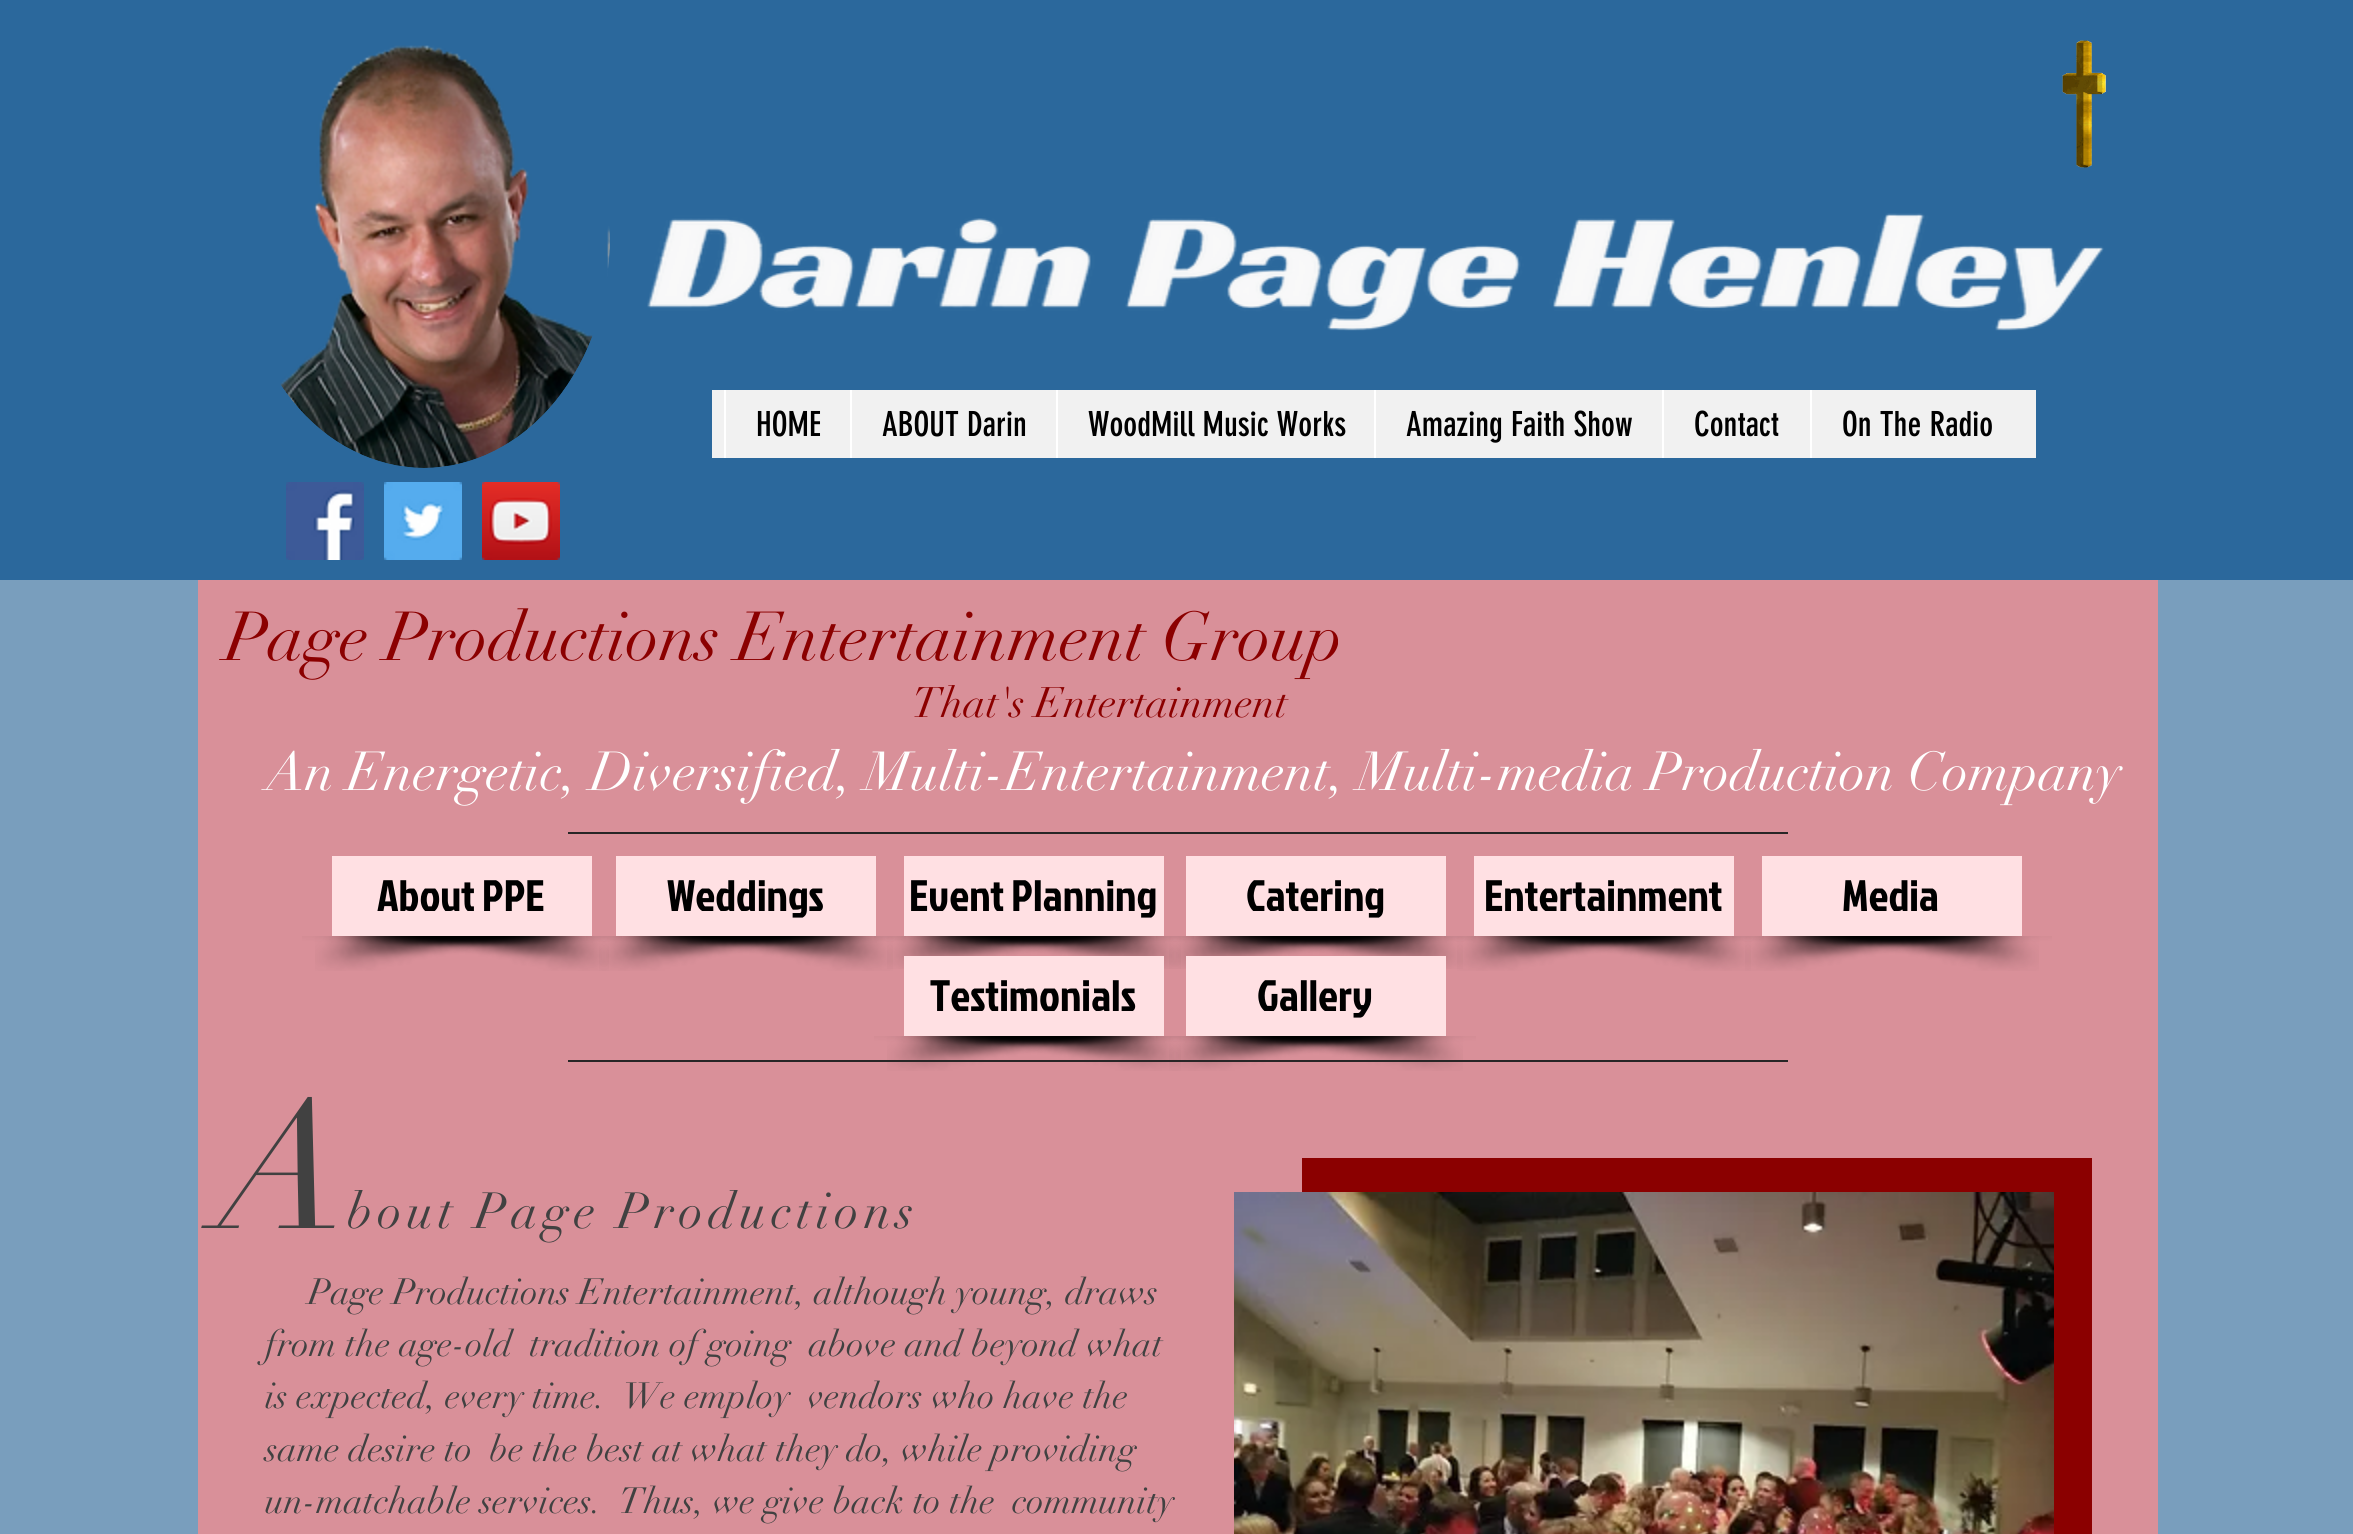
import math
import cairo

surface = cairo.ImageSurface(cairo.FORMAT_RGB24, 2353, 1534)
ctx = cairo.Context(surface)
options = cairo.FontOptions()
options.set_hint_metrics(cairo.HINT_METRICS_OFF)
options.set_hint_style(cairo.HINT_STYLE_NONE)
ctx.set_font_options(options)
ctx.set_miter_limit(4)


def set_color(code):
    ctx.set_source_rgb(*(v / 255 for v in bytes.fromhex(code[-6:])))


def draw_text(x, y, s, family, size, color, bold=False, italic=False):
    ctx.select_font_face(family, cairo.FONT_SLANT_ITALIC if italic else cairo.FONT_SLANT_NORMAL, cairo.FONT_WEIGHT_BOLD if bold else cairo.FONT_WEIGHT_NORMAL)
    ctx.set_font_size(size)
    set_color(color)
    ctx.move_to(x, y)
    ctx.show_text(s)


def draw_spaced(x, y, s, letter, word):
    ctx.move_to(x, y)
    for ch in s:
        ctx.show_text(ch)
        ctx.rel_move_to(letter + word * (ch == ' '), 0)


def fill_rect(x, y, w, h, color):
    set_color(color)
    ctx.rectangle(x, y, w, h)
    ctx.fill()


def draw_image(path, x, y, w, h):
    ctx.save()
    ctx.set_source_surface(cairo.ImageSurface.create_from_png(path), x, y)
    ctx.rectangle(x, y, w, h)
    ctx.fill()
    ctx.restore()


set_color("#799ebd")
ctx.paint()
fill_rect(0, 0, 2353, 580, "#2b689c")
draw_image("assets/img1.png", 280, 45, 330, 423)
draw_image("assets/img2.png", 2062, 40, 44, 128)
draw_image("assets/img3.png", 647, 213, 1457, 118)
fill_rect(712, 390, 1324, 68, "#f1f1f1")
fill_rect(724, 390, 2, 68, "#ffffff")
draw_text(756, 436, "HOME", "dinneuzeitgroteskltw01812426", 34, "#000000")
fill_rect(850, 390, 2, 68, "#ffffff")
draw_text(882, 436, "ABOUT Darin", "dinneuzeitgroteskltw01812426", 34, "#000000")
fill_rect(1056, 390, 2, 68, "#ffffff")
draw_text(1088, 436, "WoodMill Music Works", "dinneuzeitgroteskltw01812426", 34, "#000000")
fill_rect(1374, 390, 2, 68, "#ffffff")
draw_text(1406, 436, "Amazing Faith Show", "dinneuzeitgroteskltw01812426", 34, "#000000")
fill_rect(1662, 390, 2, 68, "#ffffff")
draw_text(1694, 436, "Contact", "dinneuzeitgroteskltw01812426", 34, "#000000")
fill_rect(1810, 390, 2, 68, "#ffffff")
draw_text(1842, 436, "On The Radio", "dinneuzeitgroteskltw01812426", 34, "#000000")
draw_image("assets/img4.png", 286, 482, 78, 78)
draw_image("assets/img5.png", 384, 482, 78, 78)
draw_image("assets/img6.png", 482, 482, 78, 78)
fill_rect(198, 580, 1960, 954, "#d99099")
draw_text(225, 660, "Page Productions Entertainment Group", "didot", 68, "#8b0000")
draw_text(912, 717, "That's Entertainment", "didot", 42, "#8b0000")
draw_text(266, 790, "An Energetic, Diversified, Multi-Entertainment, Multi-media Production Company", "didot", 54, "#ffffff")
fill_rect(568, 832, 1220, 2, "#282626")
fill_rect(332, 856, 260, 80, "#ffe0e3")
draw_text(377, 911, "About PPE", "Jockey One", 44, "#000000")
draw_image("assets/img8.png", 315, 936, 307, 35)
draw_image("assets/img7.png", 302, 936, 307, 35)
fill_rect(616, 856, 260, 80, "#ffe0e3")
draw_text(667, 911, "Weddings", "Jockey One", 44, "#000000")
draw_image("assets/img10.png", 599, 936, 307, 35)
draw_image("assets/img9.png", 586, 936, 307, 35)
fill_rect(904, 856, 260, 80, "#ffe0e3")
draw_text(909, 911, "Event Planning", "Jockey One", 44, "#000000")
draw_image("assets/img12.png", 887, 936, 307, 33)
draw_image("assets/img11.png", 874, 936, 307, 33)
fill_rect(1186, 856, 260, 80, "#ffe0e3")
draw_text(1246, 911, "Catering", "Jockey One", 44, "#000000")
draw_image("assets/img14.png", 1169, 936, 307, 33)
draw_image("assets/img13.png", 1156, 936, 307, 33)
fill_rect(1474, 856, 260, 80, "#ffe0e3")
draw_text(1484, 911, "Entertainment", "Jockey One", 44, "#000000")
draw_image("assets/img16.png", 1457, 936, 307, 35)
fill_rect(1186, 956, 260, 80, "#ffe0e3")
draw_image("assets/img15.png", 1444, 936, 307, 35)
fill_rect(1762, 856, 260, 80, "#ffe0e3")
draw_text(1842, 911, "Media", "Jockey One", 44, "#000000")
draw_image("assets/img16.png", 1745, 936, 307, 35)
draw_image("assets/img17.png", 1732, 936, 307, 35)
fill_rect(904, 956, 260, 80, "#ffe0e3")
draw_text(930, 1011, "Testimonials", "Jockey One", 44, "#000000")
draw_image("assets/img8.png", 887, 1036, 307, 35)
draw_image("assets/img7.png", 874, 1036, 307, 35)
draw_text(1257, 1011, "Gallery", "Jockey One", 44, "#000000")
draw_image("assets/img19.png", 1169, 1036, 307, 35)
draw_image("assets/img18.png", 1156, 1036, 307, 35)
fill_rect(568, 1060, 1220, 2, "#282626")
draw_text(217, 1228, "A", "didot", 180, "#414141")
ctx.set_font_size(50)
draw_spaced(347, 1228, "bout Page Productions", 5, 0)
fill_rect(1302, 1158, 790, 376, "#8b0000")
draw_text(308, 1304, "Page Productions Entertainment, although young, draws", "didot", 36, "#414141")
draw_text(265, 1356, "from the age-old  tradition of going  above and beyond what", "didot", 36, "#414141")
draw_text(265, 1408, "is expected, every time.  We employ  vendors who have the", "didot", 36, "#414141")
draw_text(265, 1461, "same desire to  be the best at what they do, while providing", "didot", 36, "#414141")
draw_text(265, 1513, "un-matchable services.  Thus, we give back to the  community", "didot", 36, "#414141")
draw_image("assets/img20.png", 1234, 1192, 820, 342)
surface.write_to_png("output.png")
